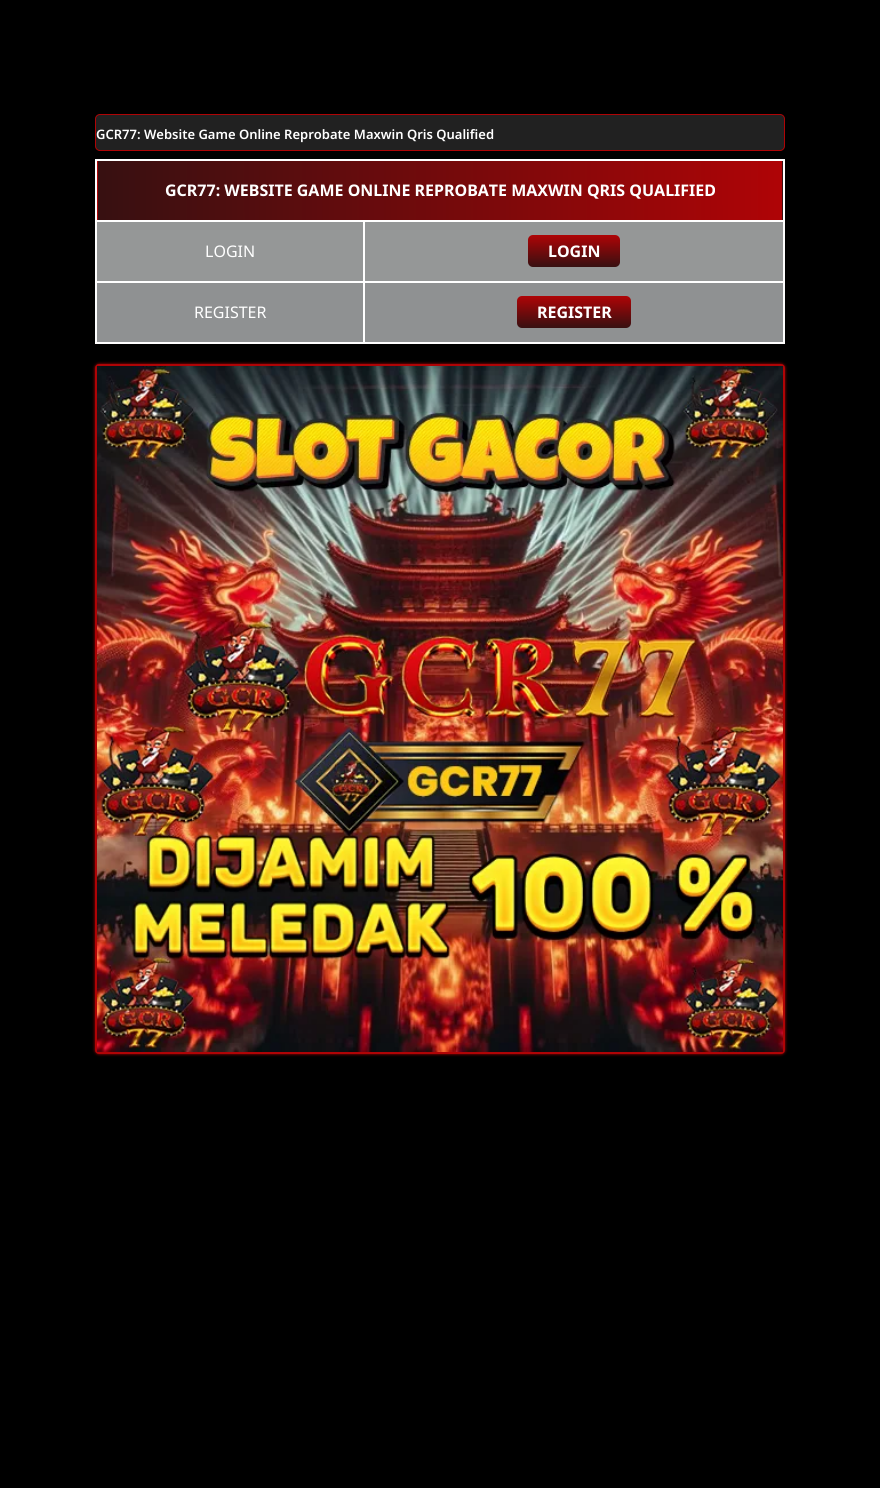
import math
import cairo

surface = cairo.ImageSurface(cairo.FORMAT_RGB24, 880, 1488)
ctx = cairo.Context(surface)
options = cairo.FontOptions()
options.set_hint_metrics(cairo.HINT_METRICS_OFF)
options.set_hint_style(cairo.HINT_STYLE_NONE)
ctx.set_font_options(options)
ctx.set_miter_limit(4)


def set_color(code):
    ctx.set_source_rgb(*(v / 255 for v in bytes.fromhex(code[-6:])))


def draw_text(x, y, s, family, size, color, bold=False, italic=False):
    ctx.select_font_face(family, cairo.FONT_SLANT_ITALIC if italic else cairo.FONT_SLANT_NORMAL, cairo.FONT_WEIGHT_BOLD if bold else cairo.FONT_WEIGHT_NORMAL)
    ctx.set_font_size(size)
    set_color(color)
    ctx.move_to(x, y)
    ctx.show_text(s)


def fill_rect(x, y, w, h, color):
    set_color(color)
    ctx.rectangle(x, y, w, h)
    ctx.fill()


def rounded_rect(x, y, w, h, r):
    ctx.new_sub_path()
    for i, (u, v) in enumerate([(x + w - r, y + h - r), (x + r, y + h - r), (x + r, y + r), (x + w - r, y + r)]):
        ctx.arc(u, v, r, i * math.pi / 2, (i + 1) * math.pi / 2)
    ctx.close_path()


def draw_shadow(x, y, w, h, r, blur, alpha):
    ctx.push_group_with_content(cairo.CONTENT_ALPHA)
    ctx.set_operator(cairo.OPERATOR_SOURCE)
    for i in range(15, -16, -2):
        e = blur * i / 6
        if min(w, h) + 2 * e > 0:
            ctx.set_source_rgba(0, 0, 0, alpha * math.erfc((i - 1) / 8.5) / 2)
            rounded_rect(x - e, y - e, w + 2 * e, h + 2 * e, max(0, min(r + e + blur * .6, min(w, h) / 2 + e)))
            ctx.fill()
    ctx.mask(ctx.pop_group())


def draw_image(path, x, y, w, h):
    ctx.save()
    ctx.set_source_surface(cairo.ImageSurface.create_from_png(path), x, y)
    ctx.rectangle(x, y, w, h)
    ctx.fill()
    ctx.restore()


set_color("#000000")
ctx.paint()
set_color("#212121")
rounded_rect(95.5, 114.5, 689, 36, 4.5)
ctx.fill_preserve()
set_color("#af0406")
ctx.set_line_width(1)
ctx.stroke()
draw_text(96, 139, "GCR77: Website Game Online Reprobate Maxwin Qris Qualified", "Noto Sans SemiBold", 13, "#ffffff")
fill_rect(97, 283, 686, 59, "#8f9192")
gradient = cairo.LinearGradient(-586, 191, 98, 190)
gradient.add_color_stop_rgba(0, 0.216, 0.063, 0.067, 1)
gradient.add_color_stop_rgba(1, 0.686, 0.016, 0.024, 1)
ctx.set_source(gradient)
ctx.rectangle(97, 160, 1, 61)
ctx.fill()
gradient = cairo.LinearGradient(98, 191, 782, 190)
gradient.add_color_stop_rgba(0, 0.216, 0.063, 0.067, 1)
gradient.add_color_stop_rgba(1, 0.686, 0.016, 0.024, 1)
ctx.set_source(gradient)
ctx.rectangle(98, 161, 684, 59)
ctx.fill()
gradient = cairo.LinearGradient(782, 191, 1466, 190)
gradient.add_color_stop_rgba(0, 0.216, 0.063, 0.067, 1)
gradient.add_color_stop_rgba(1, 0.686, 0.016, 0.024, 1)
ctx.set_source(gradient)
ctx.rectangle(782, 160, 1, 61)
ctx.fill()
fill_rect(95, 159, 690, 2, "#ffffff")
fill_rect(783, 159, 2, 63, "#ffffff")
fill_rect(95, 220, 690, 2, "#ffffff")
fill_rect(95, 159, 2, 63, "#ffffff")
draw_text(165, 196, "GCR77: WEBSITE GAME ONLINE REPROBATE MAXWIN QRIS QUALIFIED", "Noto Sans", 16, "#ffffff", bold=True)
fill_rect(97, 222, 686, 59, "#959797")
draw_text(205, 257, "LOGIN", "Noto Sans", 16, "#ffffff")
fill_rect(363, 281, 422, 2, "#ffffff")
fill_rect(783, 220, 2, 124, "#ffffff")
fill_rect(363, 342, 422, 2, "#ffffff")
fill_rect(363, 281, 2, 63, "#ffffff")
fill_rect(95, 281, 270, 2, "#ffffff")
fill_rect(363, 220, 2, 63, "#ffffff")
gradient = cairo.LinearGradient(574, 235, 574, 267)
gradient.add_color_stop_rgba(0, 0.686, 0.016, 0.024, 1)
gradient.add_color_stop_rgba(1, 0.216, 0.063, 0.067, 1)
ctx.set_source(gradient)
rounded_rect(528, 235, 92, 32, 5)
ctx.fill()
draw_text(548, 257, "LOGIN", "Noto Sans", 16, "#ffffff", bold=True)
fill_rect(95, 342, 270, 2, "#ffffff")
fill_rect(95, 220, 2, 124, "#ffffff")
draw_text(194, 318, "REGISTER", "Noto Sans", 16, "#ffffff")
gradient = cairo.LinearGradient(574, 296, 574, 328)
gradient.add_color_stop_rgba(0, 0.686, 0.016, 0.024, 1)
gradient.add_color_stop_rgba(1, 0.216, 0.063, 0.067, 1)
ctx.set_source(gradient)
rounded_rect(517, 296, 114, 32, 5)
ctx.fill()
draw_text(537, 318, "REGISTER", "Noto Sans", 16, "#ffffff", bold=True)
set_color("#af0406")
draw_shadow(95, 364, 690, 690, 4, 1.5, 1)
rounded_rect(96, 365, 688, 688, 3)
set_color("#af0406")
ctx.set_line_width(2)
ctx.stroke()
draw_image("assets/img1.png", 97, 366, 686, 686)
surface.write_to_png("output.png")
